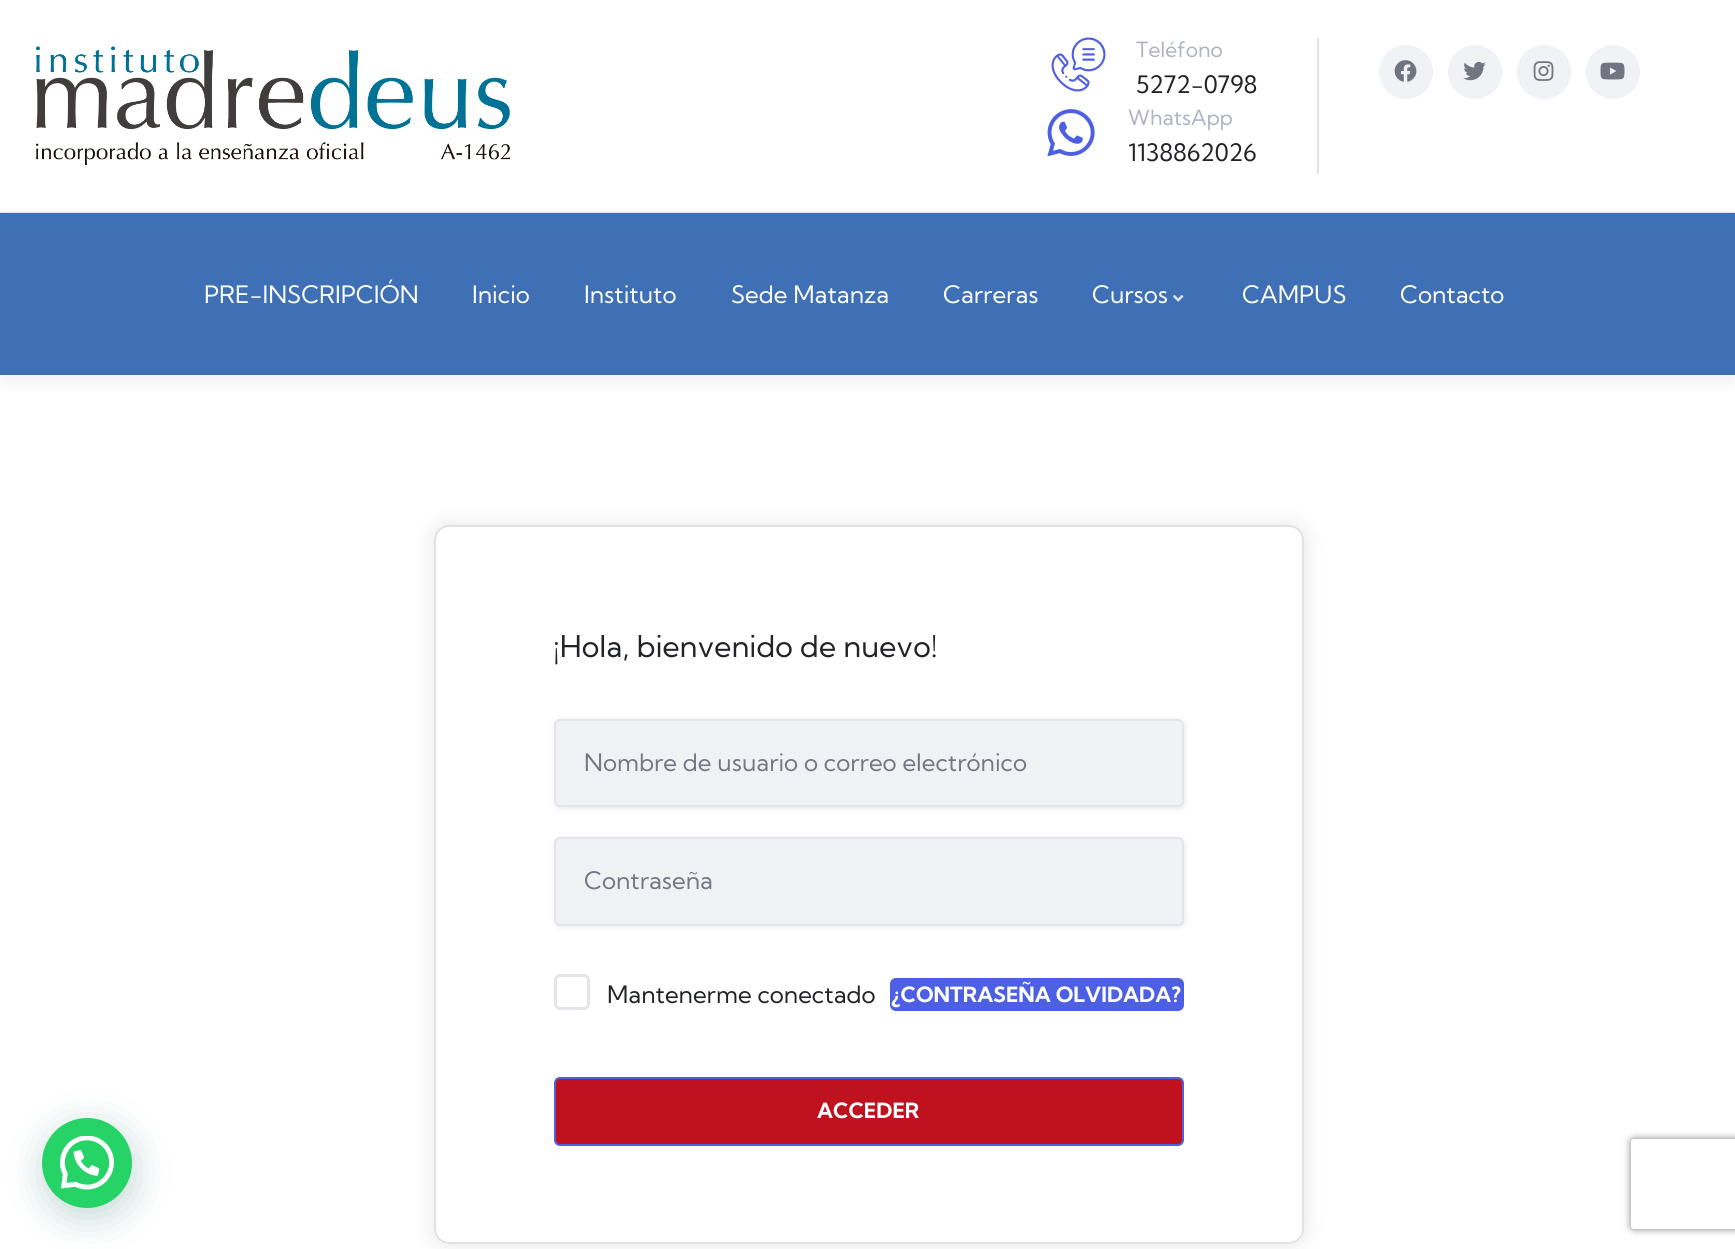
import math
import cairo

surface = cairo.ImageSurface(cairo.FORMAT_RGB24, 1735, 1249)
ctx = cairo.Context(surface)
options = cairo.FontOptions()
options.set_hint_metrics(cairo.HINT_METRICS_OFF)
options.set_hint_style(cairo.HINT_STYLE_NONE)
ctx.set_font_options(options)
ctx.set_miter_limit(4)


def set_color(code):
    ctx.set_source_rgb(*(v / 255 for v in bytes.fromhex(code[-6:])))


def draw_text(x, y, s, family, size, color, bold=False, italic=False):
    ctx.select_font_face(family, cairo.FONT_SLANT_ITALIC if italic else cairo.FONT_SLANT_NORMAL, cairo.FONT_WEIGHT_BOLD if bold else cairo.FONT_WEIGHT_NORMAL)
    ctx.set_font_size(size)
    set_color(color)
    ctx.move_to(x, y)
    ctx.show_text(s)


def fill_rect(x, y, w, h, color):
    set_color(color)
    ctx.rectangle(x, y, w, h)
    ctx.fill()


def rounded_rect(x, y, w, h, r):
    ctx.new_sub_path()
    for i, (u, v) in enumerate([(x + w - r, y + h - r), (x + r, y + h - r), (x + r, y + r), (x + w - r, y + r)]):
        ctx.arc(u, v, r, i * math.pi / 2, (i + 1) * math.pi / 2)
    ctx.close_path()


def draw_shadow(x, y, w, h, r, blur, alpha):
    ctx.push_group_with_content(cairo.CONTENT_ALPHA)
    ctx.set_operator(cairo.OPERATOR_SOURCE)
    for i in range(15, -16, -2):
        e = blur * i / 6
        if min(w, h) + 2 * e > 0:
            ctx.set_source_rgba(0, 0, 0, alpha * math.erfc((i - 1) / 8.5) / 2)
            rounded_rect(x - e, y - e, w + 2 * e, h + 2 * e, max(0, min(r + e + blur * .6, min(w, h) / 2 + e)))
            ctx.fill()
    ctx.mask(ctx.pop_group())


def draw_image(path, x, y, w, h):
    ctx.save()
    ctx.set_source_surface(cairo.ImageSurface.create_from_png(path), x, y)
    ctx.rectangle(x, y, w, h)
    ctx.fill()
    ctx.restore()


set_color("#ffffff")
ctx.paint()
fill_rect(0, 212, 1735, 1, "#e0e2e9")
draw_image("assets/img1.png", 36, 46, 474, 119)
fill_rect(1317, 38, 2, 136, "#e0e2e9")
draw_image("assets/img2.png", 1051, 37, 55, 55)
draw_text(1136, 57, "Teléfono", "Kumbh Sans", 21, "#aeb2c2")
draw_text(1136, 93, "5272-0798", "Kumbh Sans", 24, "#212327")
set_color("#f1f2f6")
ctx.new_path()
ctx.arc(1406, 72, 27, 0, 2 * math.pi)
ctx.fill()
draw_image("assets/img3.png", 1394, 60, 23, 22)
ctx.arc(1475, 72, 27, 0, 2 * math.pi)
ctx.fill()
draw_image("assets/img4.png", 1463, 61, 23, 20)
ctx.arc(1544, 72, 27, 0, 2 * math.pi)
ctx.fill()
draw_image("assets/img5.png", 1533, 61, 21, 20)
ctx.arc(1613, 72, 27, 0, 2 * math.pi)
ctx.fill()
draw_image("assets/img6.png", 1600, 62, 25, 18)
draw_image("assets/img7.png", 1047, 109, 48, 48)
draw_text(1128, 125, "WhatsApp", "Kumbh Sans", 21, "#aeb2c2")
draw_text(1128, 161, "1138862026", "Kumbh Sans", 24, "#212327")
set_color("#000000")
draw_shadow(0, 221, 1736, 162, 0, 7.5, 0.05)
fill_rect(0, 213, 1735, 162, "#3f70b5")
draw_text(204, 303, "PRE-INSCRIPCIÓN", "Kumbh Sans", 24, "#ffffff")
draw_text(472, 303, "Inicio", "Kumbh Sans", 24, "#ffffff")
draw_text(584, 303, "Instituto", "Kumbh Sans", 24, "#ffffff")
draw_text(731, 303, "Sede Matanza", "Kumbh Sans", 24, "#ffffff")
draw_text(943, 303, "Carreras", "Kumbh Sans", 24, "#ffffff")
draw_text(1092, 303, "Cursos", "Kumbh Sans", 24, "#ffffff")
draw_image("assets/img8.png", 1173, 295, 11, 7)
draw_text(1242, 303, "CAMPUS", "Kumbh Sans", 24, "#ffffff")
draw_text(1400, 303, "Contacto", "Kumbh Sans", 24, "#ffffff")
ctx.save()
ctx.set_fill_rule(cairo.FILL_RULE_EVEN_ODD)
ctx.new_path()
ctx.move_to(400, 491)
ctx.line_to(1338, 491)
ctx.line_to(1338, 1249)
ctx.line_to(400, 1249)
ctx.close_path()
ctx.move_to(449, 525)
ctx.line_to(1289, 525)
ctx.curve_to(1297.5, 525, 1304, 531.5, 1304, 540)
ctx.line_to(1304, 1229)
ctx.curve_to(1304, 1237.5, 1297.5, 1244, 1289, 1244)
ctx.line_to(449, 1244)
ctx.curve_to(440.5, 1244, 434, 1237.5, 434, 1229)
ctx.line_to(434, 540)
ctx.curve_to(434, 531.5, 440.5, 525, 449, 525)
ctx.close_path()
ctx.clip()
set_color("#000000")
draw_shadow(434, 525, 870, 719, 15, 11, 0.1)
ctx.restore()
rounded_rect(435, 526, 868, 717, 14)
set_color("#dee2e6")
ctx.stroke()
draw_text(553, 657, "¡Hola, bienvenido de nuevo!", "Kumbh Sans", 30, "#212327")
set_color("#000000")
draw_shadow(555, 720, 630, 89, 6, 3, 0.09)
set_color("#f1f2f6")
rounded_rect(555, 720, 628, 86, 5)
ctx.fill_preserve()
set_color("#e3e5eb")
ctx.stroke()
draw_text(584, 771, "Nombre de usuario o correo electrónico", "Kumbh Sans", 24, "#757783")
set_color("#000000")
draw_shadow(555, 839, 630, 88, 6, 3, 0.09)
set_color("#f1f2f6")
rounded_rect(555, 838, 628, 87, 5)
ctx.fill_preserve()
set_color("#e3e5eb")
ctx.stroke()
draw_text(584, 889, "Contraseña", "Kumbh Sans", 24, "#757783")
rounded_rect(555.5, 975.5, 33, 33, 4.5)
set_color("#e3e5eb")
ctx.set_line_width(3)
ctx.stroke()
draw_text(607, 1003, "Mantenerme conectado", "Kumbh Sans", 24, "#212327")
set_color("#4d5fe3")
rounded_rect(891, 979, 292, 31, 5)
ctx.fill_preserve()
ctx.set_line_width(2)
ctx.stroke()
draw_text(891, 1002, "¿CONTRASEÑA OLVIDADA?", "Kumbh Sans", 21, "#ffffff", bold=True)
set_color("#c0111e")
rounded_rect(555, 1078, 628, 67, 5)
ctx.fill_preserve()
set_color("#4d5fe3")
ctx.stroke()
draw_text(817, 1118, "ACCEDER", "Kumbh Sans", 21, "#ffffff", bold=True)
set_color("#075e54")
draw_shadow(44, 1127, 90, 90, 45, 18, 0.24)
set_color("#25d366")
ctx.arc(87, 1163, 45, 0, 2 * math.pi)
ctx.fill()
draw_image("assets/img9.png", 60, 1136, 54, 54)
ctx.save()
ctx.set_fill_rule(cairo.FILL_RULE_EVEN_ODD)
ctx.new_path()
ctx.move_to(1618, 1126)
ctx.line_to(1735, 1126)
ctx.line_to(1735, 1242)
ctx.line_to(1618, 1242)
ctx.close_path()
ctx.move_to(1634, 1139)
ctx.line_to(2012, 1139)
ctx.curve_to(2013.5, 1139, 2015, 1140.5, 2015, 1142)
ctx.line_to(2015, 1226)
ctx.curve_to(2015, 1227.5, 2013.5, 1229, 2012, 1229)
ctx.line_to(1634, 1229)
ctx.curve_to(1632.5, 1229, 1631, 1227.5, 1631, 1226)
ctx.line_to(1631, 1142)
ctx.curve_to(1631, 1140.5, 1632.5, 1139, 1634, 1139)
ctx.close_path()
ctx.clip()
set_color("#808080")
draw_shadow(1631, 1139, 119, 90, 3, 4, 1)
ctx.restore()
surface.write_to_png("output.png")
